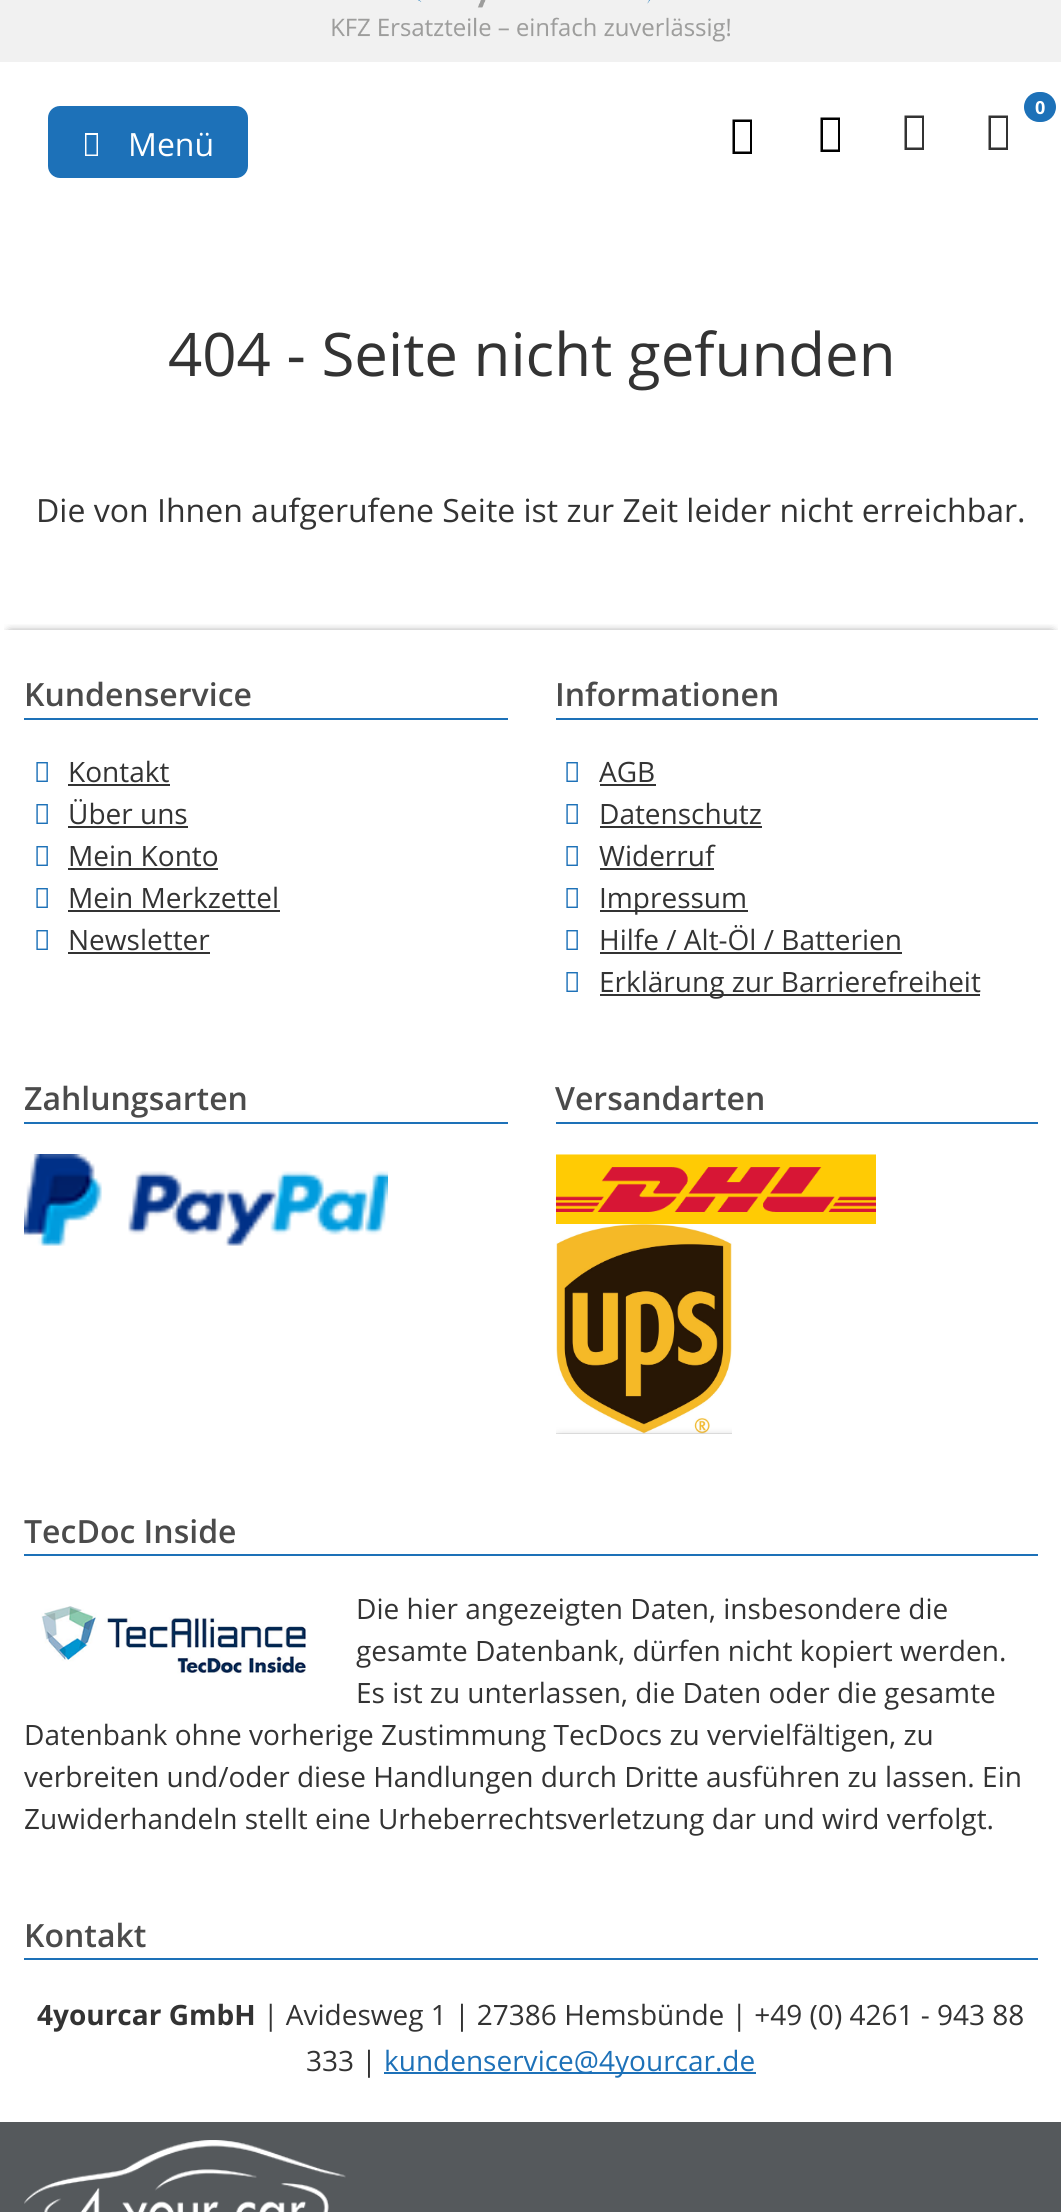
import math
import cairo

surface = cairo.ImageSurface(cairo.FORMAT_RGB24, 1061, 2212)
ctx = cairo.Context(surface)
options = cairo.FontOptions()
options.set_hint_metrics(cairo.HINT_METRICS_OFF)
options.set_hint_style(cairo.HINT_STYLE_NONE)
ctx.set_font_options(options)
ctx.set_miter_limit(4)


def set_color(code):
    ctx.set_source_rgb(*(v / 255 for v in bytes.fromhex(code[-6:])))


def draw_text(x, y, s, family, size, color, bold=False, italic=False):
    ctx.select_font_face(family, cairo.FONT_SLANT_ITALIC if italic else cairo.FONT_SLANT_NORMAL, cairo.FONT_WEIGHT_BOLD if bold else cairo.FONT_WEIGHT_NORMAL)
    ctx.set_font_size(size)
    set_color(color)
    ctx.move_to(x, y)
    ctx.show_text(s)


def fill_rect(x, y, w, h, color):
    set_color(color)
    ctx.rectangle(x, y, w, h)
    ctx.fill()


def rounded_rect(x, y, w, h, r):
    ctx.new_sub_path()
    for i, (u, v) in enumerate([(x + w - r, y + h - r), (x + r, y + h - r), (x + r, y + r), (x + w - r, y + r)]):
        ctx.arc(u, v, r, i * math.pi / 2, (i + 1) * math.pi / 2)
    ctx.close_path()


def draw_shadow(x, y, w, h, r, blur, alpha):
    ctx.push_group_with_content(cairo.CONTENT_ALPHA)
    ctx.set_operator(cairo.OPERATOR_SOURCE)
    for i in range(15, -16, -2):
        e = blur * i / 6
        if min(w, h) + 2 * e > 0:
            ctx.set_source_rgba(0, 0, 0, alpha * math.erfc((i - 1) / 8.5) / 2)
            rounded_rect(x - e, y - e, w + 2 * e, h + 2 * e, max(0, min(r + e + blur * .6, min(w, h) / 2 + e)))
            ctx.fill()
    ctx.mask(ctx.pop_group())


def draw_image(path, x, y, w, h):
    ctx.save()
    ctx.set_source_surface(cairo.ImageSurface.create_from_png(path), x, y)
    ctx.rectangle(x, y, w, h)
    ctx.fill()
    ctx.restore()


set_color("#ffffff")
ctx.paint()
fill_rect(0, 0, 1061, 62, "#f1f1f1")
draw_image("assets/img1.png", 332, 0, 398, 42)
set_color("#1d71b8")
rounded_rect(1024, 92, 32, 30, 15)
ctx.fill()
draw_text(1035, 114, "0", "Open Sans", 18, "#ffffff", bold=True)
set_color("#333333")
ctx.new_path()
ctx.move_to(988.5, 150)
ctx.line_to(988.5, 115.5)
ctx.line_to(1008, 115.5)
ctx.line_to(1008, 150)
ctx.close_path()
ctx.move_to(991, 147.5)
ctx.line_to(1006, 147.5)
ctx.line_to(1006, 118)
ctx.line_to(991, 118)
ctx.close_path()
ctx.fill()
set_color("#000000")
ctx.new_path()
ctx.move_to(732.5, 154)
ctx.line_to(732.5, 119.5)
ctx.line_to(752, 119.5)
ctx.line_to(752, 154)
ctx.close_path()
ctx.move_to(735, 151.5)
ctx.line_to(750, 151.5)
ctx.line_to(750, 122)
ctx.line_to(735, 122)
ctx.close_path()
ctx.fill()
ctx.new_path()
ctx.move_to(820.5, 152)
ctx.line_to(820.5, 117.5)
ctx.line_to(840, 117.5)
ctx.line_to(840, 152)
ctx.close_path()
ctx.move_to(823, 149.5)
ctx.line_to(838, 149.5)
ctx.line_to(838, 120)
ctx.line_to(823, 120)
ctx.close_path()
ctx.fill()
set_color("#333333")
ctx.new_path()
ctx.move_to(904.5, 150)
ctx.line_to(904.5, 115.5)
ctx.line_to(924, 115.5)
ctx.line_to(924, 150)
ctx.close_path()
ctx.move_to(907, 147.5)
ctx.line_to(922, 147.5)
ctx.line_to(922, 118)
ctx.line_to(907, 118)
ctx.close_path()
ctx.fill()
set_color("#1d71b8")
rounded_rect(49, 107, 198, 70, 11)
ctx.fill_preserve()
ctx.stroke()
set_color("#ffffff")
ctx.new_path()
ctx.move_to(85, 156)
ctx.line_to(85, 133)
ctx.line_to(98, 133)
ctx.line_to(98, 156)
ctx.close_path()
ctx.move_to(86.5, 154.5)
ctx.line_to(96.5, 154.5)
ctx.line_to(96.5, 135)
ctx.line_to(86.5, 135)
ctx.close_path()
ctx.fill()
draw_text(128, 156, "Menü", "Open Sans", 32, "#ffffff")
draw_text(168, 376, "404 - Seite nicht gefunden", "Open Sans", 60, "#333333")
draw_text(36, 522, "Die von Ihnen aufgerufene Seite ist zur Zeit leider nicht erreichbar.", "Open Sans", 32, "#333333")
ctx.save()
ctx.rectangle(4, 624, 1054, 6)
ctx.clip()
set_color("#333333")
draw_shadow(10, 634, 1042, 1472, 0, 5, 1)
ctx.restore()
fill_rect(24, 718, 484, 2, "#1d71b8")
draw_text(24, 706, "Kundenservice", "Open Sans SemiBold", 32, "#4b4b4b")
draw_image("assets/img2.png", 36, 762, 12, 20)
draw_text(68, 782, "Kontakt", "Open Sans", 28, "#333333")
fill_rect(68, 784, 102, 2, "#333333")
draw_image("assets/img2.png", 36, 804, 12, 20)
draw_text(68, 824, "Über uns", "Open Sans", 28, "#333333")
fill_rect(68, 826, 120, 2, "#333333")
draw_image("assets/img2.png", 36, 846, 12, 20)
draw_text(68, 866, "Mein Konto", "Open Sans", 28, "#333333")
fill_rect(68, 868, 150, 2, "#333333")
draw_image("assets/img2.png", 36, 888, 12, 20)
draw_text(68, 908, "Mein Merkzettel", "Open Sans", 28, "#333333")
fill_rect(68, 910, 212, 2, "#333333")
draw_image("assets/img2.png", 36, 930, 12, 20)
draw_text(68, 950, "Newsletter", "Open Sans", 28, "#333333")
fill_rect(68, 952, 142, 2, "#333333")
fill_rect(556, 718, 482, 2, "#1d71b8")
draw_text(555, 706, "Informationen", "Open Sans SemiBold", 32, "#4b4b4b")
draw_image("assets/img2.png", 566, 762, 12, 20)
draw_text(599, 782, "AGB", "Open Sans", 28, "#333333")
fill_rect(600, 784, 56, 2, "#333333")
draw_image("assets/img2.png", 566, 804, 12, 20)
draw_text(599, 824, "Datenschutz", "Open Sans", 28, "#333333")
fill_rect(600, 826, 162, 2, "#333333")
draw_image("assets/img2.png", 566, 846, 12, 20)
draw_text(599, 866, "Widerruf", "Open Sans", 28, "#333333")
fill_rect(600, 868, 114, 2, "#333333")
draw_image("assets/img2.png", 566, 888, 12, 20)
fill_rect(600, 910, 148, 2, "#333333")
draw_text(599, 908, "Impressum", "Open Sans", 28, "#333333")
draw_image("assets/img2.png", 566, 930, 12, 20)
draw_text(599, 950, "Hilfe / Alt-Öl / Batterien", "Open Sans", 28, "#333333")
fill_rect(600, 952, 302, 2, "#333333")
draw_image("assets/img2.png", 566, 972, 12, 20)
fill_rect(600, 994, 380, 2, "#333333")
draw_text(599, 992, "Erklärung zur Barrierefreiheit", "Open Sans", 28, "#333333")
fill_rect(24, 1122, 484, 2, "#1d71b8")
draw_text(24, 1110, "Zahlungsarten", "Open Sans SemiBold", 32, "#4b4b4b")
draw_image("assets/img3.png", 24, 1154, 364, 92)
fill_rect(556, 1122, 482, 2, "#1d71b8")
draw_text(555, 1110, "Versandarten", "Open Sans SemiBold", 32, "#4b4b4b")
draw_image("assets/img4.png", 556, 1154, 320, 70)
draw_image("assets/img5.png", 556, 1224, 176, 210)
fill_rect(24, 1554, 1014, 2, "#1d71b8")
draw_text(24, 1543, "TecDoc Inside", "Open Sans SemiBold", 32, "#4b4b4b")
draw_image("assets/img6.png", 41, 1606, 265, 68)
draw_text(356, 1619, "Die hier angezeigten Daten, insbesondere die", "Open Sans", 28, "#333333")
draw_text(356, 1661, "gesamte Datenbank, dürfen nicht kopiert werden.", "Open Sans", 28, "#333333")
draw_text(356, 1703, "Es ist zu unterlassen, die Daten oder die gesamte", "Open Sans", 28, "#333333")
draw_text(24, 1745, "Datenbank ohne vorherige Zustimmung TecDocs zu vervielfältigen, zu", "Open Sans", 28, "#333333")
draw_text(24, 1787, "verbreiten und/oder diese Handlungen durch Dritte ausführen zu lassen. Ein", "Open Sans", 28, "#333333")
draw_text(24, 1829, "Zuwiderhandeln stellt eine Urheberrechtsverletzung dar und wird verfolgt.", "Open Sans", 28, "#333333")
fill_rect(24, 1958, 1014, 2, "#1d71b8")
draw_text(24, 1947, "Kontakt", "Open Sans SemiBold", 32, "#4b4b4b")
draw_text(37, 2025, "4yourcar GmbH", "Open Sans", 28, "#333333", bold=True)
draw_text(263, 2025, "| Avidesweg 1 | 27386 Hemsbünde | +49 (0) 4261 - 943 88", "Open Sans", 28, "#333333")
draw_text(306, 2071, "333 |", "Open Sans", 28, "#333333")
fill_rect(384, 2072, 372, 2, "#1d71b8")
draw_text(384, 2071, "kundenservice@4yourcar.de", "Open Sans", 28, "#1d71b8")
fill_rect(0, 2122, 1061, 90, "#55595c")
draw_image("assets/img7.png", 24, 2140, 322, 72)
surface.write_to_png("output.png")
